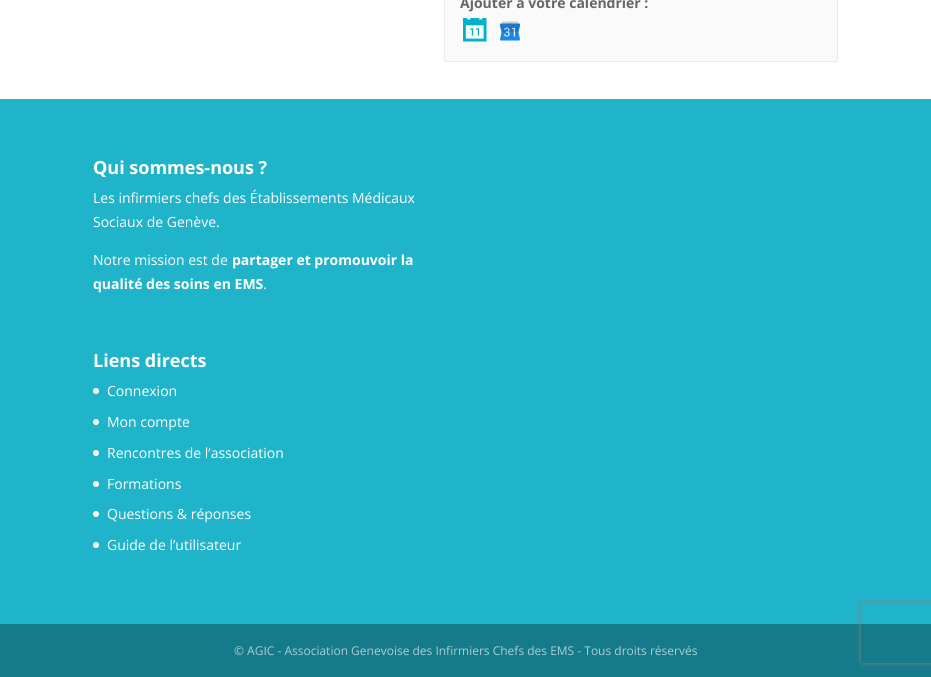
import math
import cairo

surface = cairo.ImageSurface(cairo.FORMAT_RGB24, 931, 677)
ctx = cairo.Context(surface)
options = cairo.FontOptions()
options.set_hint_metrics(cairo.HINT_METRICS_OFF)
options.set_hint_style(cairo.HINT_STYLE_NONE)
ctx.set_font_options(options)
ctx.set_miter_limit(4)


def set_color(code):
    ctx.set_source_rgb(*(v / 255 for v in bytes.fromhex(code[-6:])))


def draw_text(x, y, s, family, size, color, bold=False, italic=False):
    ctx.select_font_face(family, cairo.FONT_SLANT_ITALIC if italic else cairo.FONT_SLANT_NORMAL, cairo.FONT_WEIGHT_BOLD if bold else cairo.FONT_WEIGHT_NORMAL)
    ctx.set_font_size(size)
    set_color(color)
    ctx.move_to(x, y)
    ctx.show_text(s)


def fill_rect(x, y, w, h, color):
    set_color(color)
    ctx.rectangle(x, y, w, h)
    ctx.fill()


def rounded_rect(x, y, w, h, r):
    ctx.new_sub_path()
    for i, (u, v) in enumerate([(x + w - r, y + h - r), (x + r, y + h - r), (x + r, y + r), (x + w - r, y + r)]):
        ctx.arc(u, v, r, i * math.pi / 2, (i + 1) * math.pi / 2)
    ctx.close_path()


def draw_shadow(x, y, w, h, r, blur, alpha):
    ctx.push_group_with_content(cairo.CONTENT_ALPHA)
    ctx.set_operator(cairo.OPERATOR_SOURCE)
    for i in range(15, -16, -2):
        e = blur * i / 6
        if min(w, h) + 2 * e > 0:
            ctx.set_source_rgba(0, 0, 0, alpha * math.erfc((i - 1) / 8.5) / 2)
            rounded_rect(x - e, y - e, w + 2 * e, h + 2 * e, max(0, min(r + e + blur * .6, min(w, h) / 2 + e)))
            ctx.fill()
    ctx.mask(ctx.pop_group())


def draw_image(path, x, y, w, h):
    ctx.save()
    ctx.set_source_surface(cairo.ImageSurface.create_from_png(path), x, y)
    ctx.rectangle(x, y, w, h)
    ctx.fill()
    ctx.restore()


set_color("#ffffff")
ctx.paint()
set_color("#fafafa")
ctx.rectangle(444.5, -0.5, 393, 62)
ctx.fill_preserve()
set_color("#eaeaea")
ctx.set_line_width(1)
ctx.stroke()
draw_text(460, 8, "Ajouter à votre calendrier :", "Open Sans", 14, "#666666", bold=True)
draw_image("assets/img1.png", 463, 18, 24, 24)
draw_image("assets/img2.png", 500, 21, 20, 20)
fill_rect(0, 99, 931, 525, "#1fb4ca")
draw_text(93, 174, "Qui sommes-nous ?", "Open Sans", 18, "#ffffff", bold=True)
draw_text(93, 203, "Les infirmiers chefs des Établissements Médicaux", "Open Sans", 14, "#ffffff")
draw_text(93, 227, "Sociaux de Genève.", "Open Sans", 14, "#ffffff")
draw_text(93, 265, "Notre mission est de", "Open Sans", 14, "#ffffff")
draw_text(232, 265, "partager et promouvoir la", "Open Sans", 14, "#ffffff", bold=True)
draw_text(93, 289, "qualité des soins en EMS", "Open Sans", 14, "#ffffff", bold=True)
draw_text(263, 289, ".", "Open Sans", 14, "#ffffff")
draw_text(93, 367, "Liens directs", "Open Sans", 18, "#ffffff", bold=True)
ctx.new_path()
ctx.arc(96, 391, 3, 0, 2 * math.pi)
ctx.fill()
draw_text(107, 396, "Connexion", "Open Sans", 14, "#ffffff")
ctx.new_path()
ctx.arc(96, 422, 3, 0, 2 * math.pi)
ctx.fill()
draw_text(107, 427, "Mon compte", "Open Sans", 14, "#ffffff")
ctx.new_path()
ctx.arc(96, 453, 3, 0, 2 * math.pi)
ctx.fill()
draw_text(107, 458, "Rencontres de l’association", "Open Sans", 14, "#ffffff")
ctx.new_path()
ctx.arc(96, 484, 3, 0, 2 * math.pi)
ctx.fill()
draw_text(107, 489, "Formations", "Open Sans", 14, "#ffffff")
ctx.new_path()
ctx.arc(96, 514, 3, 0, 2 * math.pi)
ctx.fill()
draw_text(107, 519, "Questions & réponses", "Open Sans", 14, "#ffffff")
ctx.new_path()
ctx.arc(96, 545, 3, 0, 2 * math.pi)
ctx.fill()
draw_text(107, 550, "Guide de l’utilisateur", "Open Sans", 14, "#ffffff")
fill_rect(0, 624, 931, 53, "#157a89")
draw_text(234, 655, "© AGIC - Association Genevoise des Infirmiers Chefs des EMS - Tous droits réservés", "Open Sans", 12, "#abcfd5")
ctx.save()
ctx.set_fill_rule(cairo.FILL_RULE_EVEN_ODD)
ctx.new_path()
ctx.move_to(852, 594)
ctx.line_to(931, 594)
ctx.line_to(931, 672)
ctx.line_to(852, 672)
ctx.close_path()
ctx.move_to(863, 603)
ctx.line_to(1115, 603)
ctx.curve_to(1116, 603, 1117, 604, 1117, 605)
ctx.line_to(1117, 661)
ctx.curve_to(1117, 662, 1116, 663, 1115, 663)
ctx.line_to(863, 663)
ctx.curve_to(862, 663, 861, 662, 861, 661)
ctx.line_to(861, 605)
ctx.curve_to(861, 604, 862, 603, 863, 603)
ctx.close_path()
ctx.clip()
set_color("#808080")
draw_shadow(861, 603, 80, 60, 2, 2.5, 1)
ctx.restore()
surface.write_to_png("output.png")
